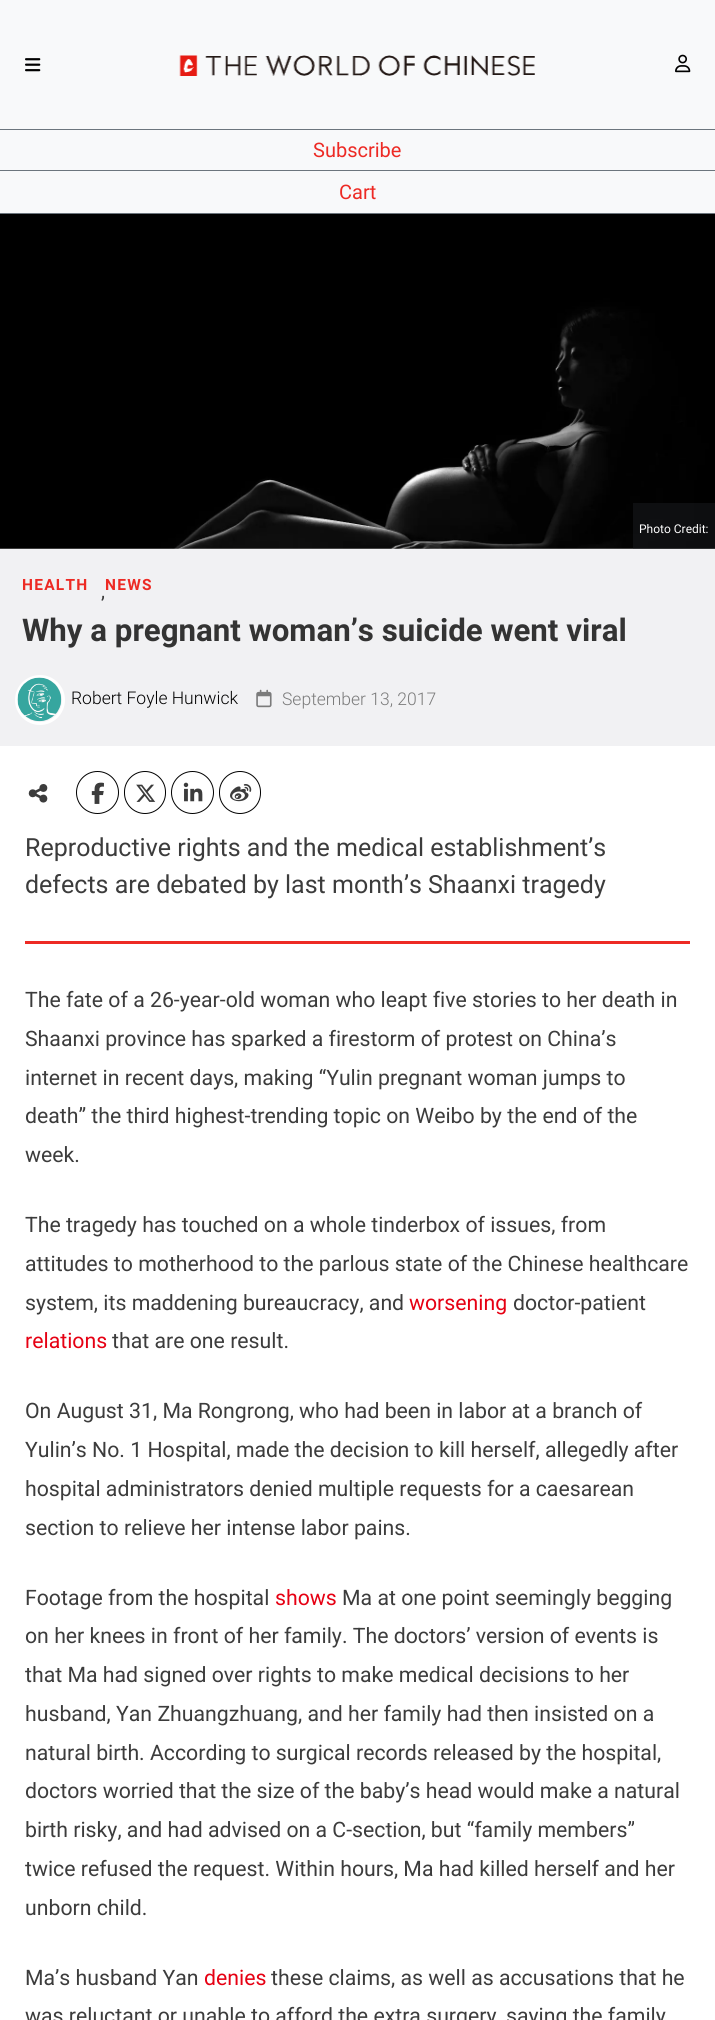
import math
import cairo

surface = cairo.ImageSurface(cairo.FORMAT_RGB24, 715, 2020)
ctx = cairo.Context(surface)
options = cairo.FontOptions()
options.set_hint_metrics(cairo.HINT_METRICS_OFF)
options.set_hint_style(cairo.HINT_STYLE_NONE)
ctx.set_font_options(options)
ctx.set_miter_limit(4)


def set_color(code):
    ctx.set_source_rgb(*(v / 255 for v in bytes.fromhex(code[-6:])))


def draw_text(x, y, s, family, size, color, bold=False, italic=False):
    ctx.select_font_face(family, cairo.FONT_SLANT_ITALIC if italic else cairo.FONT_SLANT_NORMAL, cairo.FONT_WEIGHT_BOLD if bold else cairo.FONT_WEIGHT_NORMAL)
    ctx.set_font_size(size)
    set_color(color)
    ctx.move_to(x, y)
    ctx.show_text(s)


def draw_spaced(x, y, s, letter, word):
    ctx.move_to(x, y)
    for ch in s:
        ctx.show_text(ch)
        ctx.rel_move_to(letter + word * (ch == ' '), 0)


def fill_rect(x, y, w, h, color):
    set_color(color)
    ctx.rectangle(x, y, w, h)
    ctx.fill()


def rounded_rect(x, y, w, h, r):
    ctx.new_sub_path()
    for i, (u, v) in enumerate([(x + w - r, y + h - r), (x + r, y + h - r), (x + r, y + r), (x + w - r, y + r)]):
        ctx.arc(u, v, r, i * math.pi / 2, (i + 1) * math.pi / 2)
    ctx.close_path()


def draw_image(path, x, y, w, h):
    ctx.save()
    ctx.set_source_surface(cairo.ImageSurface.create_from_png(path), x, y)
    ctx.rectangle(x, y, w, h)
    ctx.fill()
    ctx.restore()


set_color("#ffffff")
ctx.paint()
fill_rect(0, 0, 715, 213, "#f8f9fa")
draw_image("assets/img1.png", 25, 58, 16, 14)
draw_image("assets/img2.png", 179, 55, 356, 21)
draw_image("assets/img3.png", 675, 54, 16, 19)
fill_rect(0, 129, 715, 1, "#6c757d")
fill_rect(0, 170, 715, 1, "#6c757d")
draw_text(313, 157, "Subscribe", "Roboto", 20, "#ed2a24")
fill_rect(0, 213, 715, 1, "#6c757d")
draw_text(339, 199, "Cart", "Roboto", 20, "#ed2a24")
fill_rect(0, 548, 715, 198, "#f1f1f3")
draw_image("assets/img4.png", 0, 214, 715, 335)
ctx.set_source_rgba(0.129, 0.145, 0.161, 0.4)
ctx.rectangle(633, 503, 82, 46)
ctx.fill()
draw_text(639, 533, "Photo Credit:", "Roboto", 12, "#ffffff")
ctx.select_font_face("Roboto", cairo.FONT_SLANT_NORMAL, cairo.FONT_WEIGHT_BOLD)
ctx.set_font_size(15.5)
set_color("#ed2a24")
draw_spaced(22, 590, "HEALTH", 1.25, 0)
draw_spaced(105, 590, "NEWS", 1.25, 0)
draw_text(101, 598, ",", "Roboto", 20, "#3c3c3c")
draw_text(22, 641, "Why a pregnant woman’s suicide went viral", "Roboto", 31.25, "#333333", bold=True)
ctx.new_path()
ctx.arc(40, 700, 23.5, 0, 2 * math.pi)
set_color("#ffffff")
ctx.set_line_width(3)
ctx.stroke()
draw_image("assets/img5.png", 17, 677, 45, 45)
draw_text(71, 704, "Robert Foyle Hunwick", "Roboto Light", 17.5, "#000000")
draw_image("assets/img6.png", 256, 689, 16, 19)
draw_text(282, 705, "September 13, 2017", "Roboto Light", 17.5, "#7b7b7b")
draw_image("assets/img7.png", 28, 784, 20, 19)
ctx.arc(97.5, 792.5, 21, 0, 2 * math.pi)
set_color("#000000")
ctx.set_line_width(1)
ctx.stroke()
draw_image("assets/img8.png", 91, 782, 13, 22)
rounded_rect(124.5, 771.5, 41, 42, 20.5)
ctx.stroke()
draw_image("assets/img9.png", 136, 784, 20, 18)
ctx.arc(192.5, 792.5, 21, 0, 2 * math.pi)
ctx.stroke()
draw_image("assets/img10.png", 183, 782, 20, 20)
rounded_rect(219.5, 771.5, 41, 42, 20.5)
ctx.stroke()
draw_image("assets/img11.png", 230, 784, 22, 18)
fill_rect(25, 941, 665, 3, "#ed2a24")
draw_text(25, 856, "Reproductive rights and the medical establishment’s", "Roboto", 25, "#3c3c3c")
draw_text(25, 893, "defects are debated by last month’s Shaanxi tragedy", "Roboto", 25, "#3c3c3c")
draw_text(25, 1007, "The fate of a 26-year-old woman who leapt five stories to her death in", "Roboto", 21.25, "#3c3c3c")
draw_text(25, 1046, "Shaanxi province has sparked a firestorm of protest on China’s", "Roboto", 21.25, "#3c3c3c")
draw_text(25, 1085, "internet in recent days, making “Yulin pregnant woman jumps to", "Roboto", 21.25, "#3c3c3c")
draw_text(25, 1123, "death” the third highest-trending topic on Weibo by the end of the", "Roboto", 21.25, "#3c3c3c")
draw_text(25, 1162, "week.", "Roboto", 21.25, "#3c3c3c")
draw_text(25, 1232, "The tragedy has touched on a whole tinderbox of issues, from", "Roboto", 21.25, "#3c3c3c")
draw_text(25, 1271, "attitudes to motherhood to the parlous state of the Chinese healthcare", "Roboto", 21.25, "#3c3c3c")
draw_text(25, 1310, "system, its maddening bureaucracy, and", "Roboto", 21.25, "#3c3c3c")
draw_text(409, 1310, "worsening", "Roboto", 21.25, "#e60013")
draw_text(513, 1310, "doctor-patient", "Roboto", 21.25, "#3c3c3c")
draw_text(25, 1348, "relations", "Roboto", 21.25, "#e60013")
draw_text(112, 1348, "that are one result.", "Roboto", 21.25, "#3c3c3c")
draw_text(25, 1418, "On August 31, Ma Rongrong, who had been in labor at a branch of", "Roboto", 21.25, "#3c3c3c")
draw_text(25, 1457, "Yulin’s No. 1 Hospital, made the decision to kill herself, allegedly after", "Roboto", 21.25, "#3c3c3c")
draw_text(25, 1496, "hospital administrators denied multiple requests for a caesarean", "Roboto", 21.25, "#3c3c3c")
draw_text(25, 1535, "section to relieve her intense labor pains.", "Roboto", 21.25, "#3c3c3c")
draw_text(25, 1605, "Footage from the hospital", "Roboto", 21.25, "#3c3c3c")
draw_text(275, 1605, "shows", "Roboto", 21.25, "#e60013")
draw_text(342, 1605, "Ma at one point seemingly begging", "Roboto", 21.25, "#3c3c3c")
draw_text(25, 1643, "on her knees in front of her family. The doctors’ version of events is", "Roboto", 21.25, "#3c3c3c")
draw_text(25, 1682, "that Ma had signed over rights to make medical decisions to her", "Roboto", 21.25, "#3c3c3c")
draw_text(25, 1721, "husband, Yan Zhuangzhuang, and her family had then insisted on a", "Roboto", 21.25, "#3c3c3c")
draw_text(25, 1760, "natural birth. According to surgical records released by the hospital,", "Roboto", 21.25, "#3c3c3c")
draw_text(25, 1798, "doctors worried that the size of the baby’s head would make a natural", "Roboto", 21.25, "#3c3c3c")
draw_text(25, 1837, "birth risky, and had advised on a C-section, but “family members”", "Roboto", 21.25, "#3c3c3c")
draw_text(25, 1876, "twice refused the request. Within hours, Ma had killed herself and her", "Roboto", 21.25, "#3c3c3c")
draw_text(25, 1915, "unborn child.", "Roboto", 21.25, "#3c3c3c")
draw_text(25, 1985, "Ma’s husband Yan", "Roboto", 21.25, "#3c3c3c")
draw_text(204, 1985, "denies", "Roboto", 21.25, "#e60013")
draw_text(271, 1985, "these claims, as well as accusations that he", "Roboto", 21.25, "#3c3c3c")
draw_text(25, 2023, "was reluctant or unable to afford the extra surgery, saying the family", "Roboto", 21.25, "#3c3c3c")
surface.write_to_png("output.png")
